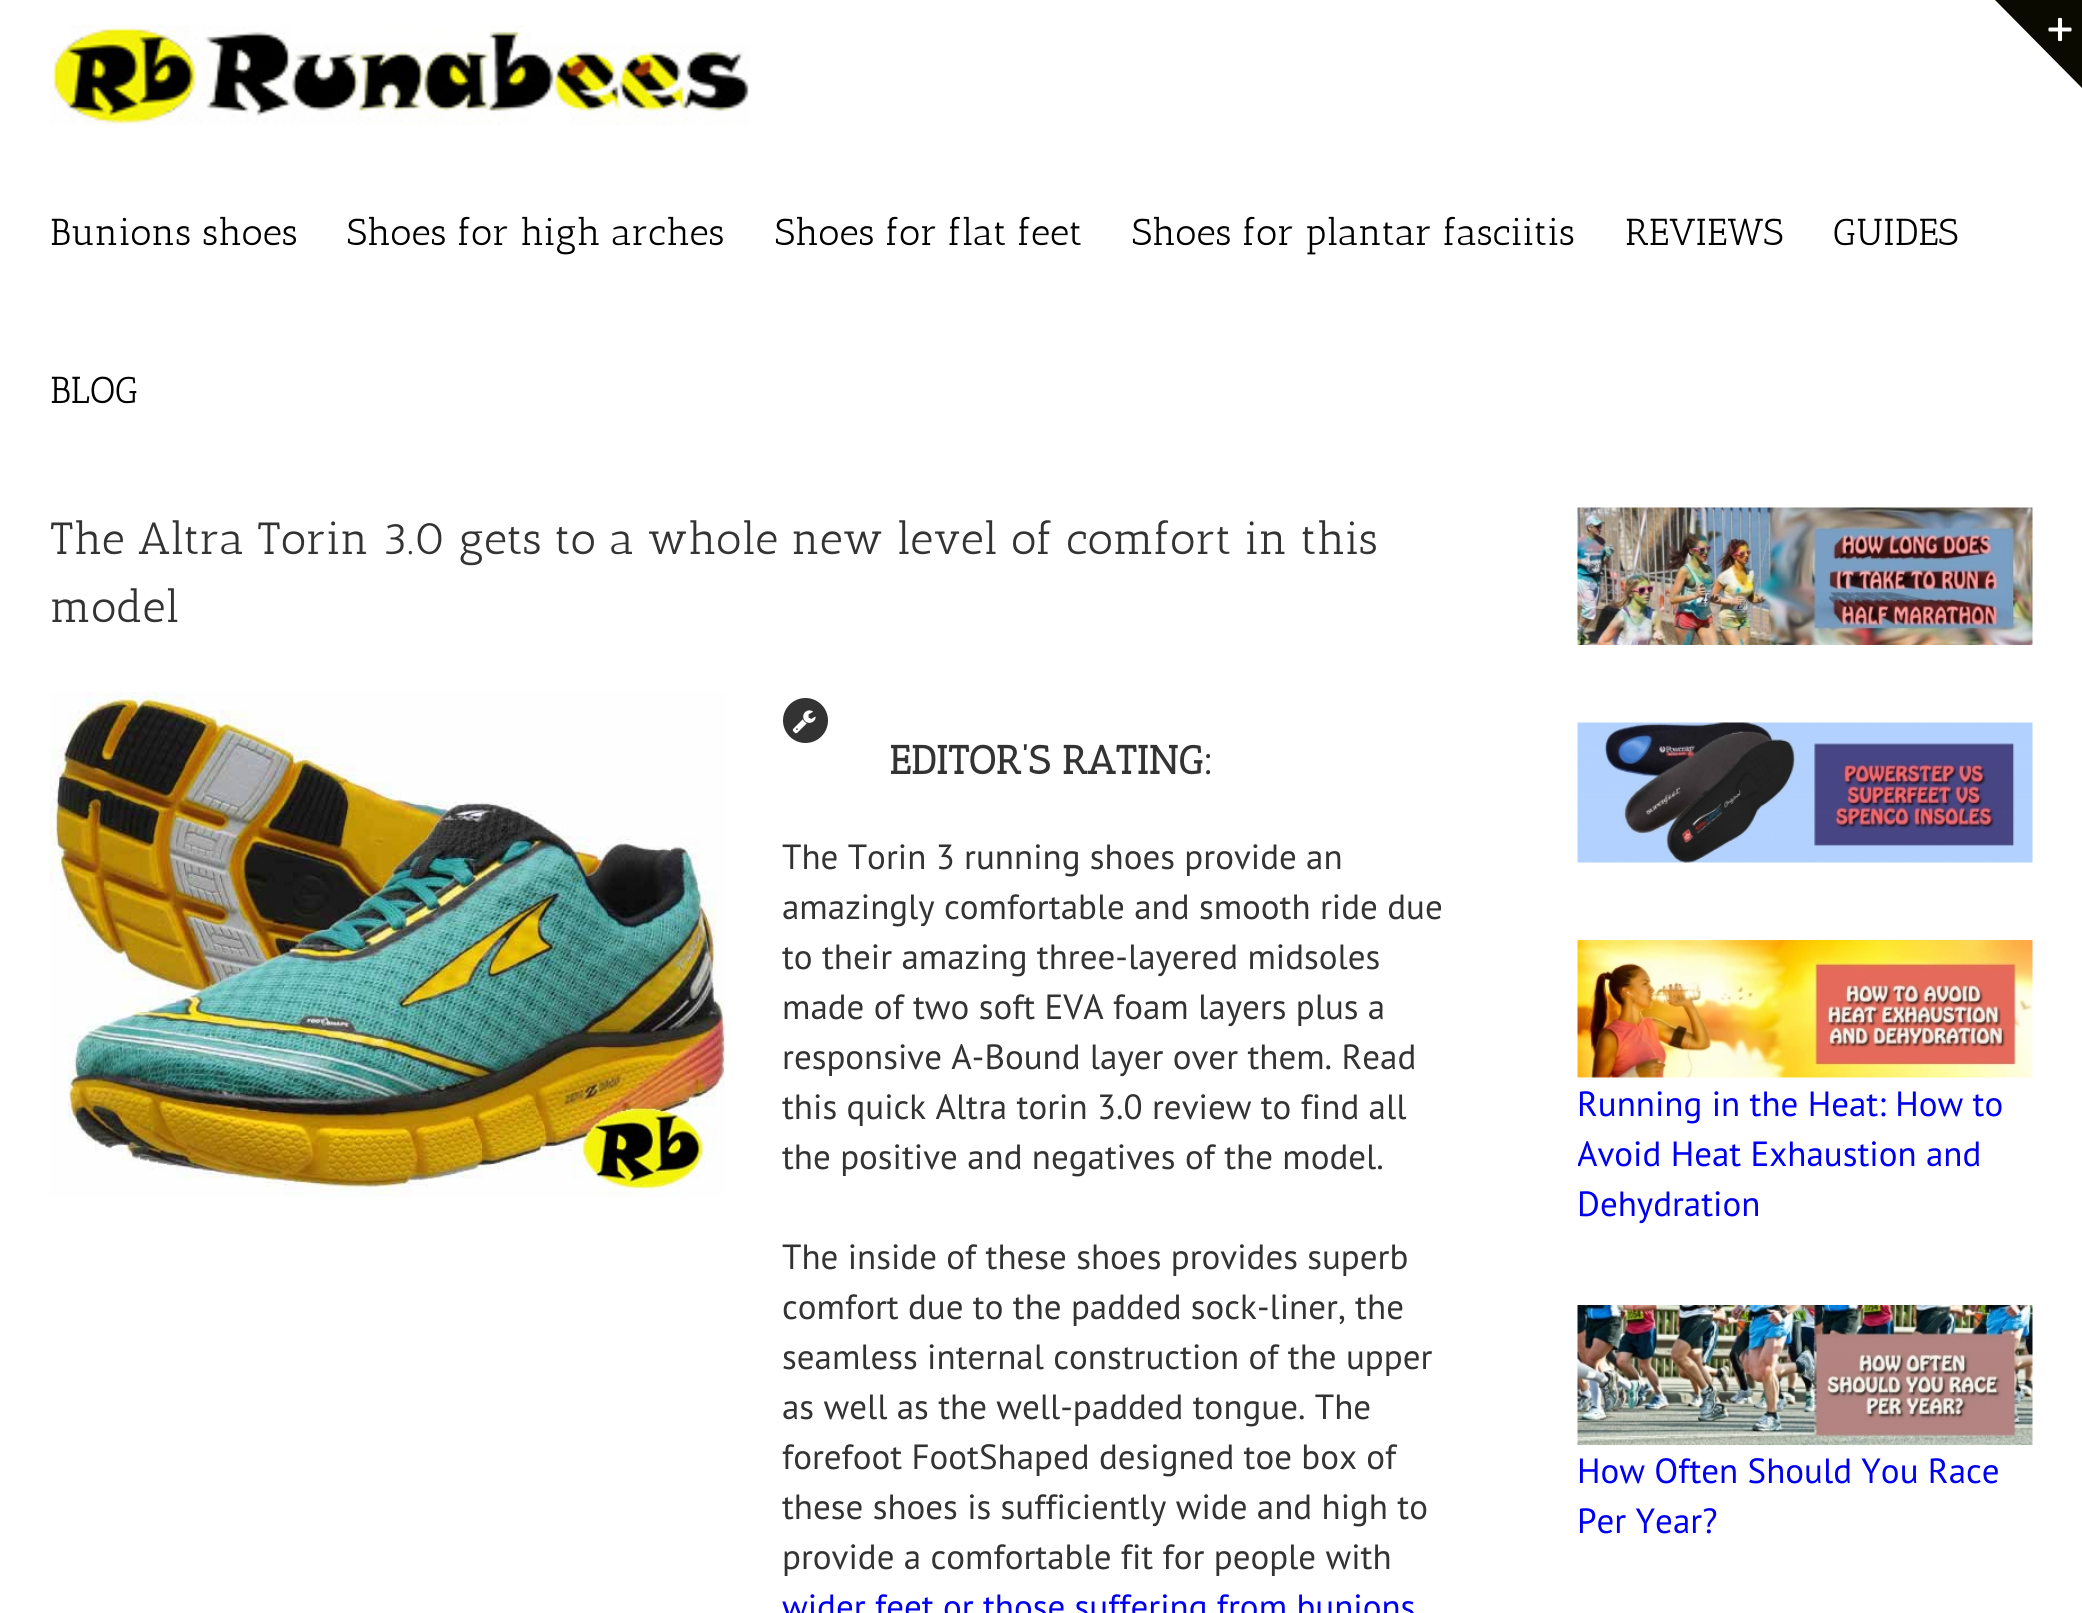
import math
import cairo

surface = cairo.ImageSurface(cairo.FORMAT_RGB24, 2082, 1613)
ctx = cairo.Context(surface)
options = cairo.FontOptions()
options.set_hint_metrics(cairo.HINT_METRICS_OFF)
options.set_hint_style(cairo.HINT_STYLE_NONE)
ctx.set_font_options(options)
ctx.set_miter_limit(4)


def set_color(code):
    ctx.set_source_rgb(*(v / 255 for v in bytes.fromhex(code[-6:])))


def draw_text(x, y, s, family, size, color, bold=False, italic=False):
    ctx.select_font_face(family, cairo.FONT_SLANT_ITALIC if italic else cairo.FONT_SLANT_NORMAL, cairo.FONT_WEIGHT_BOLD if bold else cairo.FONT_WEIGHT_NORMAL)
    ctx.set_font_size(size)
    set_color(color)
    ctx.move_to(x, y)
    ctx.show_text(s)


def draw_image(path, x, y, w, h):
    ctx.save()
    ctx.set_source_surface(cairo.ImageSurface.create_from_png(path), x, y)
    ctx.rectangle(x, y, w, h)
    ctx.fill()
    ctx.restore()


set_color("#ffffff")
ctx.paint()
set_color("#0a0a00")
ctx.new_path()
ctx.move_to(1995, 0)
ctx.line_to(2082, 0)
ctx.line_to(2082, 88)
ctx.close_path()
ctx.fill()
draw_image("assets/img1.png", 2048, 17, 24, 25)
draw_image("assets/img2.png", 50, 25, 699, 100)
draw_text(50, 245, "Bunions shoes", "Antic Slab", 37.5, "#000000")
draw_text(347, 245, "Shoes for high arches", "Antic Slab", 37.5, "#000000")
draw_text(775, 245, "Shoes for flat feet", "Antic Slab", 37.5, "#000000")
draw_text(1132, 245, "Shoes for plantar fasciitis", "Antic Slab", 37.5, "#000000")
draw_text(1625, 245, "REVIEWS", "Antic Slab", 37.5, "#000000")
draw_text(1833, 245, "GUIDES", "Antic Slab", 37.5, "#000000")
draw_text(50, 403, "BLOG", "Antic Slab", 37.5, "#000000")
draw_text(50, 554, "The Altra Torin 3.0 gets to a whole new level of comfort in this", "Antic Slab", 45, "#333333")
draw_text(50, 622, "model", "Antic Slab", 45, "#333333")
draw_image("assets/img3.png", 50, 692, 675, 505)
ctx.arc(805.5, 720.5, 21, 0, 2 * math.pi)
ctx.fill_preserve()
ctx.set_line_width(3)
ctx.stroke()
draw_image("assets/img4.png", 792, 710, 24, 24)
draw_text(889, 774, "EDITOR’S RATING:", "Antic Slab", 40, "#333333", bold=True)
draw_text(782, 869, "The Torin 3 running shoes provide an", "PT Sans", 35, "#333333")
draw_text(782, 919, "amazingly comfortable and smooth ride due", "PT Sans", 35, "#333333")
draw_text(782, 969, "to their amazing three-layered midsoles", "PT Sans", 35, "#333333")
draw_text(782, 1019, "made of two soft EVA foam layers plus a", "PT Sans", 35, "#333333")
draw_text(782, 1069, "responsive A-Bound layer over them. Read", "PT Sans", 35, "#333333")
draw_text(782, 1119, "this quick Altra torin 3.0 review to find all", "PT Sans", 35, "#333333")
draw_text(782, 1169, "the positive and negatives of the model.", "PT Sans", 35, "#333333")
draw_text(782, 1269, "The inside of these shoes provides superb", "PT Sans", 35, "#333333")
draw_text(782, 1319, "comfort due to the padded sock-liner, the", "PT Sans", 35, "#333333")
draw_text(782, 1369, "seamless internal construction of the upper", "PT Sans", 35, "#333333")
draw_text(782, 1419, "as well as the well-padded tongue. The", "PT Sans", 35, "#333333")
draw_text(782, 1469, "forefoot FootShaped designed toe box of", "PT Sans", 35, "#333333")
draw_text(782, 1519, "these shoes is sufficiently wide and high to", "PT Sans", 35, "#333333")
draw_text(782, 1569, "provide a comfortable fit for people with", "PT Sans", 35, "#333333")
draw_text(782, 1619, "wider feet or those suffering from bunions", "PT Sans", 35, "#0000ee")
draw_image("assets/img5.png", 1577, 507, 456, 138)
draw_image("assets/img6.png", 1577, 722, 456, 141)
draw_image("assets/img7.png", 1577, 940, 456, 138)
draw_text(1577, 1116, "Running in the Heat: How to", "PT Sans", 35, "#0000ee")
ctx.save()
ctx.rectangle(1578, 1078, 455, 150)
ctx.clip()
draw_text(1577, 1166, "Avoid Heat Exhaustion and", "PT Sans", 35, "#0000ee")
ctx.restore()
draw_text(1577, 1216, "Dehydration", "PT Sans", 35, "#0000ee")
draw_image("assets/img8.png", 1577, 1305, 456, 140)
draw_text(1577, 1483, "How Often Should You Race", "PT Sans", 35, "#0000ee")
draw_text(1577, 1533, "Per Year?", "PT Sans", 35, "#0000ee")
surface.write_to_png("output.png")
